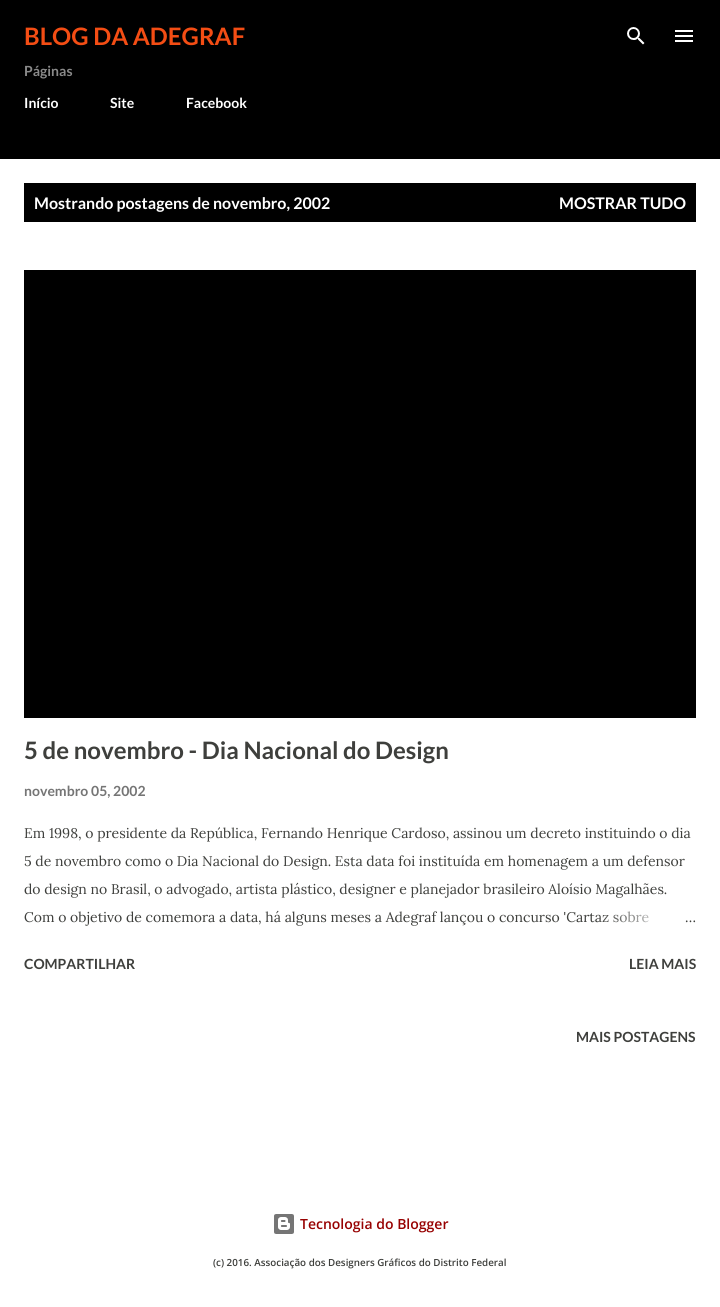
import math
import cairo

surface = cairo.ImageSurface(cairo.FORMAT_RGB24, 720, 1307)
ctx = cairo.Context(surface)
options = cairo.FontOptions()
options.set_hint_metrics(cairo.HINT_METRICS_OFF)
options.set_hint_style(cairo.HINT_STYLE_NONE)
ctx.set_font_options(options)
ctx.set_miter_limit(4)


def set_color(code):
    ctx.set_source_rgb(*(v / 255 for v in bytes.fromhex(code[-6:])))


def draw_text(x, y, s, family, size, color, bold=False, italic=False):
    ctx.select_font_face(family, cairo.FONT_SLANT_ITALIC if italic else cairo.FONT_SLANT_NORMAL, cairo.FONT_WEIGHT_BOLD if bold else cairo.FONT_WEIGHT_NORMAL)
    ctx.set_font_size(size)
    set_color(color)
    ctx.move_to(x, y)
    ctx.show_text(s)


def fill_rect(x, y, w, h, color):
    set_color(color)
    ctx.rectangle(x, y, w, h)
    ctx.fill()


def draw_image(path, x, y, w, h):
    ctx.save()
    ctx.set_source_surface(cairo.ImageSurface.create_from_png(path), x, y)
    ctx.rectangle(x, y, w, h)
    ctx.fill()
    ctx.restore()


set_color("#ffffff")
ctx.paint()
fill_rect(0, 0, 720, 159, "#000000")
draw_text(24, 45, "BLOG DA ADEGRAF", "Lato", 24, "#f44d14", bold=True)
draw_image("assets/img1.png", 627, 27, 18, 18)
draw_image("assets/img2.png", 675, 30, 18, 12)
draw_text(24, 76, "Páginas", "Lato", 14, "#8a8a8a", bold=True)
draw_text(24, 108, "Início", "Lato", 14, "#ffffff", bold=True)
draw_text(110, 108, "Site", "Lato", 14, "#ffffff", bold=True)
draw_text(186, 108, "Facebook", "Lato", 14, "#ffffff", bold=True)
fill_rect(24, 183, 672, 39, "#000000")
draw_text(34, 209, "Mostrando postagens de novembro, 2002", "Lato", 16, "#ffffff", bold=True)
draw_text(559, 209, "MOSTRAR TUDO", "Lato", 16, "#ffffff", bold=True)
fill_rect(24, 270, 672, 448, "#000000")
draw_text(24, 759, "5 de novembro - Dia Nacional do Design", "Lato", 24, "#3e3f3c", bold=True)
draw_text(24, 796, "novembro 05, 2002", "Lato", 14, "#757575", bold=True)
draw_text(24, 838, "Em 1998, o presidente da República, Fernando Henrique Cardoso, assinou um decreto instituindo o dia", "Lora", 14, "#3e3f3c")
draw_text(24, 866, "5 de novembro como o Dia Nacional do Design. Esta data foi instituída em homenagem a um defensor", "Lora", 14, "#3e3f3c")
draw_text(24, 894, "do design no Brasil, o advogado, artista plástico, designer e planejador brasileiro Aloísio Magalhães.", "Lora", 14, "#3e3f3c")
draw_text(24, 922, "Com o objetivo de comemora a data, há alguns meses a Adegraf lançou o concurso 'Cartaz sobre", "Lora", 14, "#3e3f3c")
gradient = cairo.LinearGradient(696, 917, 600, 917)
gradient.add_color_stop_rgba(0, 1, 1, 1, 1)
gradient.add_color_stop_rgba(0.2, 1, 1, 1, 1)
gradient.add_color_stop_rgba(1, 1, 1, 1, 0)
ctx.set_source(gradient)
ctx.rectangle(602, 911, 47, 12)
ctx.fill()
draw_text(685, 922, "…", "Lora", 14, "#3e3f3c")
draw_text(24, 969, "COMPARTILHAR", "Lato", 14, "#3e3f3c", bold=True)
draw_text(629, 969, "LEIA MAIS", "Lato", 14, "#3e3f3c", bold=True)
draw_text(576, 1042, "MAIS POSTAGENS", "Lato", 14, "#3e3f3c", bold=True)
draw_image("assets/img3.png", 274, 1214, 20, 20)
draw_text(300, 1229, "Tecnologia do Blogger", "Open Sans SemiBold", 14, "#970101")
draw_text(213, 1266, "(c) 2016. Associação dos Designers Gráficos do Distrito Federal", "Open Sans SemiBold", 9.8, "#3e3f3c")
surface.write_to_png("output.png")
